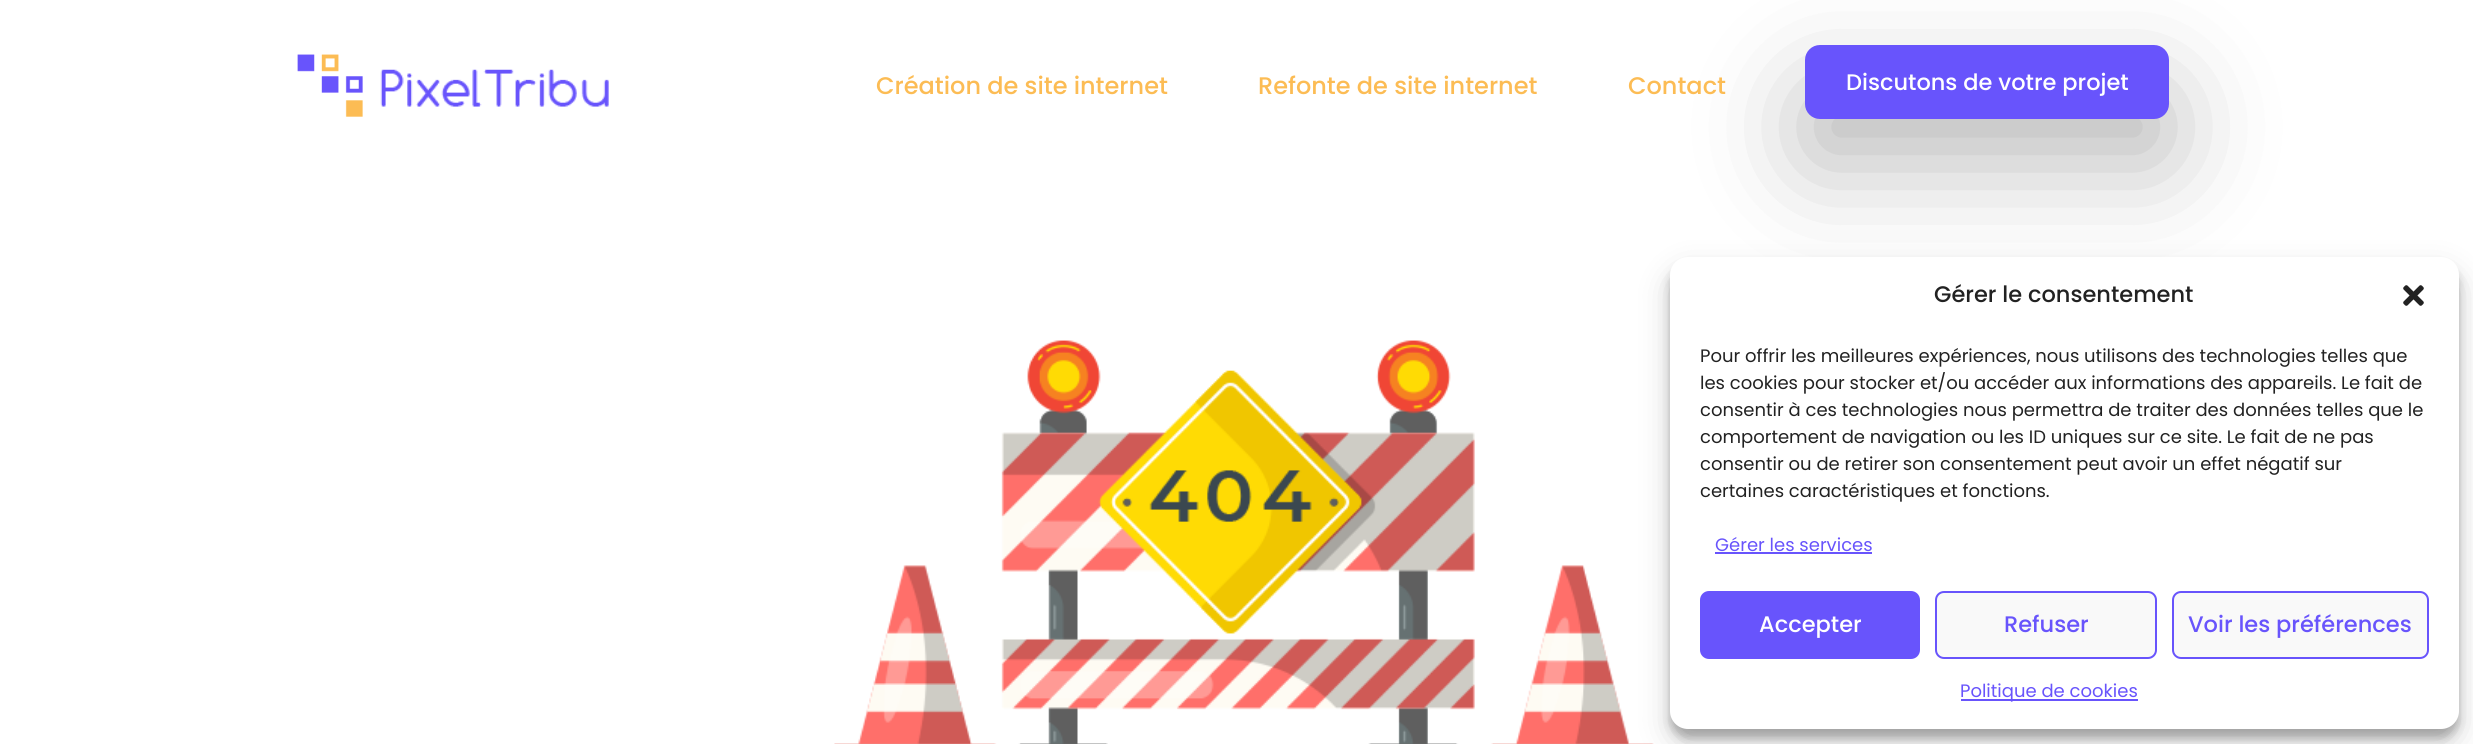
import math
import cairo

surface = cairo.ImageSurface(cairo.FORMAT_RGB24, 2473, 744)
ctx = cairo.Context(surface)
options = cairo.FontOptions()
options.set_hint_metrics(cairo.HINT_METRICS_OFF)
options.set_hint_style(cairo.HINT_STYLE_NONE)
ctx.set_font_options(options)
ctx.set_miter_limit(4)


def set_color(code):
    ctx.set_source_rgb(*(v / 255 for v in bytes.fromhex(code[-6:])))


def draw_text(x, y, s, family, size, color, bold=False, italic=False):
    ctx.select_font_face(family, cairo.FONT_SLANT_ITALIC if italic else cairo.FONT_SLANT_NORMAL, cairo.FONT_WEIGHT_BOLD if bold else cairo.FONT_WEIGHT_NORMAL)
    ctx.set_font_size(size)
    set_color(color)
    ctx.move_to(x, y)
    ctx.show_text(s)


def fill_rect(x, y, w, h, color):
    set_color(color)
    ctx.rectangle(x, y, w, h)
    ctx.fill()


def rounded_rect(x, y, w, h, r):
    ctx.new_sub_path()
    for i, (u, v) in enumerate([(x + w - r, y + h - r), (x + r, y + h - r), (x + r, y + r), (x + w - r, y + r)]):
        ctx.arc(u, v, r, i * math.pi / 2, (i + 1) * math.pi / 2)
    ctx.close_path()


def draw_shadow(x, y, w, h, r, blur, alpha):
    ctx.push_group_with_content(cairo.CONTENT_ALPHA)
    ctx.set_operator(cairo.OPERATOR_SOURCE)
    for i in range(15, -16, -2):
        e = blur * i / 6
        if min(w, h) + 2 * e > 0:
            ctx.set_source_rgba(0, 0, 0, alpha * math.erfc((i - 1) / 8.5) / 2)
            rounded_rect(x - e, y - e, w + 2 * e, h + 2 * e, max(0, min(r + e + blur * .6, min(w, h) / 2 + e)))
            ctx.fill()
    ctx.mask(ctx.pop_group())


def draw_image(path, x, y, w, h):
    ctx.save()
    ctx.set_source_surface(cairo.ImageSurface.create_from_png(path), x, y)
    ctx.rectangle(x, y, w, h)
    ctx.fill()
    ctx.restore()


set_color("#ffffff")
ctx.paint()
draw_image("assets/img1.png", 297, 54, 312, 63)
draw_text(876, 94, "Création de site internet", "Poppins Medium", 24, "#fcbc54")
draw_text(1258, 94, "Refonte de site internet", "Poppins Medium", 24, "#fcbc54")
set_color("#313131")
draw_shadow(1805, 90, 364, 74, 15, 52.5, 0.33)
draw_text(1628, 94, "Contact", "Poppins Medium", 24, "#fcbc54")
set_color("#6854fc")
rounded_rect(1806.5, 46.5, 361, 71, 13.5)
ctx.fill_preserve()
ctx.set_line_width(3)
ctx.stroke()
draw_text(1846, 90, "Discutons de votre projet", "Poppins Medium", 22.5, "#ffffff")
draw_image("assets/img2.png", 834, 340, 820, 404)
set_color("#000000")
draw_shadow(1670, 266, 789, 472, 18, 4.5, 0.23)
draw_shadow(1670, 272, 789, 472, 18, 15, 0.19)
set_color("#ffffff")
rounded_rect(1670, 257, 789, 472, 18)
ctx.fill()
draw_text(1934, 302, "Gérer le consentement", "Poppins Medium", 22.5, "#222222")
draw_image("assets/img3.png", 2403, 285, 21, 21)
draw_text(1700, 362, "Pour offrir les meilleures expériences, nous utilisons des technologies telles que", "Poppins", 18, "#222222")
draw_text(1700, 389, "les cookies pour stocker et/ou accéder aux informations des appareils. Le fait de", "Poppins", 18, "#222222")
draw_text(1700, 416, "consentir à ces technologies nous permettra de traiter des données telles que le", "Poppins", 18, "#222222")
draw_text(1700, 443, "comportement de navigation ou les ID uniques sur ce site. Le fait de ne pas", "Poppins", 18, "#222222")
draw_text(1700, 470, "consentir ou de retirer son consentement peut avoir un effet négatif sur", "Poppins", 18, "#222222")
draw_text(1700, 497, "certaines caractéristiques et fonctions.", "Poppins", 18, "#222222")
draw_text(1715, 551, "Gérer les services", "Poppins", 18, "#6854fc")
fill_rect(1715, 552, 157, 2, "#6854fc")
rounded_rect(1701, 592, 218, 66, 8)
ctx.fill_preserve()
ctx.set_line_width(2)
ctx.stroke()
draw_text(1759, 632, "Accepter", "Poppins Medium", 22.5, "#ffffff")
set_color("#f9f9f9")
rounded_rect(1936, 592, 220, 66, 8)
ctx.fill_preserve()
set_color("#6854fc")
ctx.stroke()
draw_text(2004, 632, "Refuser", "Poppins Medium", 22.5, "#6854fc")
set_color("#f9f9f9")
rounded_rect(2173, 592, 255, 66, 8)
ctx.fill_preserve()
set_color("#6854fc")
ctx.stroke()
draw_text(2188, 632, "Voir les préférences", "Poppins Medium", 22.5, "#6854fc")
fill_rect(1961, 699, 177, 2, "#6854fc")
draw_text(1960, 697, "Politique de cookies", "Poppins", 18, "#6854fc")
surface.write_to_png("output.png")
